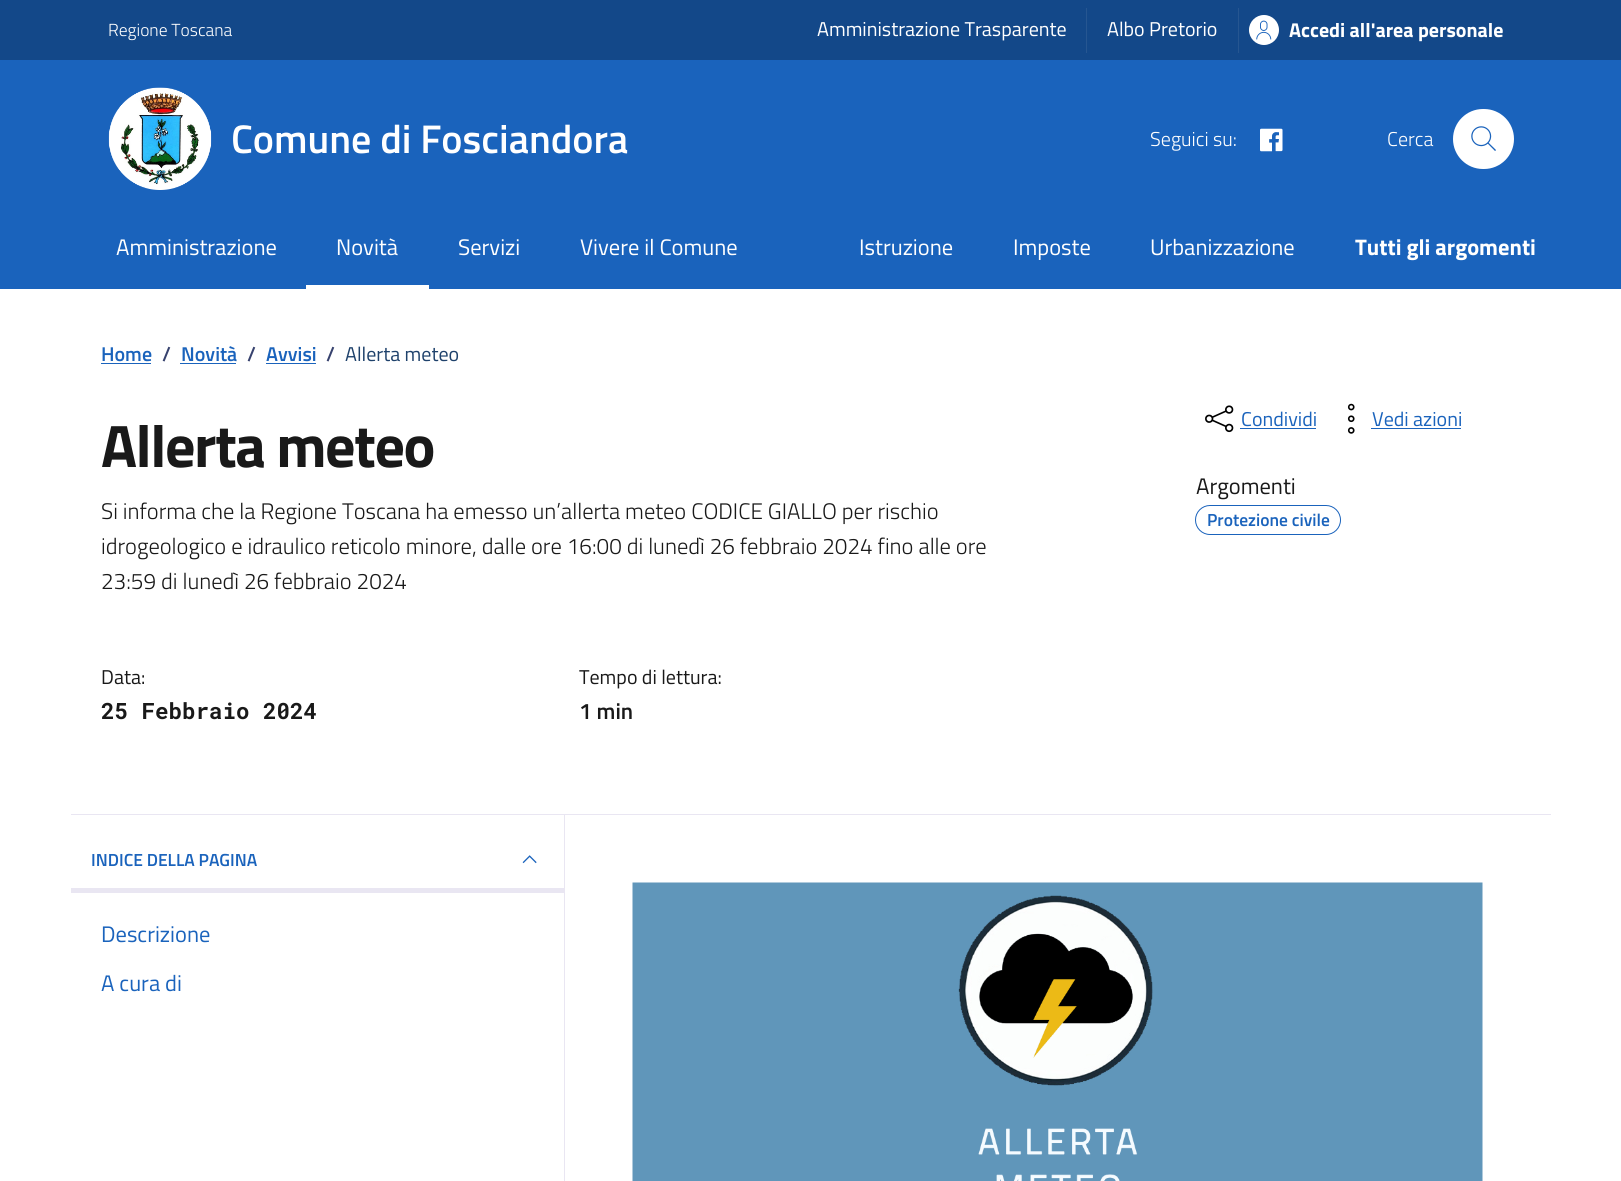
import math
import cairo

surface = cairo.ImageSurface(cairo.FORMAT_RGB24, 1621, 1181)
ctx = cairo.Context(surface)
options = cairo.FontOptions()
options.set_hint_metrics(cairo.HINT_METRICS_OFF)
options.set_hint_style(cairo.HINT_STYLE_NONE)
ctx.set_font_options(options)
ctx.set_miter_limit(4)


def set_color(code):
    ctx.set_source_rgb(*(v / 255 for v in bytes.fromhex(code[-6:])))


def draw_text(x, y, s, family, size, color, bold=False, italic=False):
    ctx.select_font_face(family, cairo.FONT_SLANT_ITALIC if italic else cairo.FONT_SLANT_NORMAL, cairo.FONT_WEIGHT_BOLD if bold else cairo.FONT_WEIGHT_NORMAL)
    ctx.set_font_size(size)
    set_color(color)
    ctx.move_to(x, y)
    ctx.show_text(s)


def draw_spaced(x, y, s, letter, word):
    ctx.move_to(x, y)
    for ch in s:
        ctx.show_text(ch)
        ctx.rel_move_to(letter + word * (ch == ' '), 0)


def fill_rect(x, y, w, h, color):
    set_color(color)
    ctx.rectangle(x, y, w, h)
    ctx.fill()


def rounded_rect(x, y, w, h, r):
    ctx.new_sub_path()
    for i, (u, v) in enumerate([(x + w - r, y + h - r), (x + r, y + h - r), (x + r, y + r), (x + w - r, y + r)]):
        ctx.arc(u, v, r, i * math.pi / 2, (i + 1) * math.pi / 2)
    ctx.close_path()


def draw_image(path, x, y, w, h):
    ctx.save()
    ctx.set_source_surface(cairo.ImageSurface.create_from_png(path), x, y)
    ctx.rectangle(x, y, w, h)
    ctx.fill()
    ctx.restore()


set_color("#ffffff")
ctx.paint()
fill_rect(0, 0, 1621, 60, "#134889")
draw_text(108, 36, "Regione Toscana", "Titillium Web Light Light", 17.5, "#ffffff")
fill_rect(1086, 8, 1, 45, "#265691")
draw_text(817, 36, "Amministrazione Trasparente", "Titillium Web", 20, "#ffffff")
fill_rect(1238, 8, 1, 45, "#265691")
draw_text(1107, 36, "Albo Pretorio", "Titillium Web", 20, "#ffffff")
ctx.new_path()
ctx.arc(1264, 30, 15, 0, 2 * math.pi)
ctx.fill()
draw_image("assets/img1.png", 1256, 20, 16, 20)
draw_text(1289, 37, "Accedi all'area personale", "Titillium Web", 20, "#ffffff", bold=True)
fill_rect(0, 60, 1621, 229, "#1a63bc")
draw_image("assets/img2.png", 108, 87, 104, 103)
draw_text(231, 153, "Comune di Fosciandora", "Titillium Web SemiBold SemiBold", 40, "#ffffff")
draw_text(1150, 146, "Seguici su:", "Titillium Web Light Light", 20, "#ffffff")
draw_image("assets/img3.png", 1260, 128, 23, 24)
draw_text(1387, 146, "Cerca", "Titillium Web Light Light", 20, "#ffffff")
rounded_rect(1453, 109, 61, 60, 30)
ctx.fill()
draw_image("assets/img4.png", 1471, 126, 25, 25)
draw_text(116, 255, "Amministrazione", "Titillium Web", 22.5, "#ffffff")
fill_rect(306, 285, 123, 4, "#ffffff")
draw_text(336, 255, "Novità", "Titillium Web", 22.5, "#ffffff")
draw_text(458, 255, "Servizi", "Titillium Web", 22.5, "#ffffff")
draw_text(580, 255, "Vivere il Comune", "Titillium Web", 22.5, "#ffffff")
draw_text(859, 255, "Istruzione", "Titillium Web", 22.5, "#ffffff")
draw_text(1013, 255, "Imposte", "Titillium Web", 22.5, "#ffffff")
draw_text(1150, 255, "Urbanizzazione", "Titillium Web", 22.5, "#ffffff")
draw_text(1355, 255, "Tutti gli argomenti", "Titillium Web", 22.5, "#ffffff", bold=True)
draw_text(101, 361, "Home", "Titillium Web SemiBold SemiBold", 20, "#1a63bc")
fill_rect(101, 363, 50, 1, "#1a63bc")
draw_text(162, 361, "/", "Titillium Web SemiBold SemiBold", 20, "#37426e")
draw_text(181, 361, "Novità", "Titillium Web SemiBold SemiBold", 20, "#1a63bc")
fill_rect(180, 363, 56, 1, "#1a63bc")
draw_text(247, 361, "/", "Titillium Web SemiBold SemiBold", 20, "#37426e")
draw_text(266, 361, "Avvisi", "Titillium Web SemiBold SemiBold", 20, "#1a63bc")
fill_rect(266, 363, 50, 1, "#1a63bc")
draw_text(326, 361, "/", "Titillium Web SemiBold SemiBold", 20, "#37426e")
draw_text(345, 361, "Allerta meteo", "Titillium Web", 20, "#1e416b")
ctx.select_font_face("Titillium Web", cairo.FONT_SLANT_NORMAL, cairo.FONT_WEIGHT_BOLD)
ctx.set_font_size(60)
set_color("#191919")
draw_spaced(101, 467, "Allerta meteo", -1.5, 0)
draw_text(101, 519, "Si informa che la Regione Toscana ha emesso un’allerta meteo CODICE GIALLO per rischio", "Titillium Web Light Light", 22.5, "#191919")
draw_text(101, 554, "idrogeologico e idraulico reticolo minore, dalle ore 16:00 di lunedì 26 febbraio 2024 fino alle ore", "Titillium Web Light Light", 22.5, "#191919")
draw_text(101, 589, "23:59 di lunedì 26 febbraio 2024", "Titillium Web Light Light", 22.5, "#191919")
draw_text(101, 684, "Data:", "Titillium Web", 20, "#191919")
draw_text(101, 719, "25 Febbraio 2024", "Roboto Mono", 22.5, "#191919", bold=True)
draw_text(579, 684, "Tempo di lettura:", "Titillium Web", 20, "#191919")
draw_text(579, 719, "1 min", "Titillium Web SemiBold SemiBold", 22.5, "#191919")
draw_image("assets/img5.png", 1205, 405, 29, 28)
draw_text(1241, 426, "Condividi", "Titillium Web", 20, "#1a63bc")
fill_rect(1240, 428, 76, 1, "#1a63bc")
draw_image("assets/img6.png", 1347, 403, 8, 31)
draw_text(1372, 426, "Vedi azioni", "Titillium Web", 20, "#1a63bc")
fill_rect(1371, 428, 90, 1, "#1a63bc")
draw_text(1196, 494, "Argomenti", "Titillium Web", 22.5, "#191919")
rounded_rect(1195.5, 505.5, 145, 29, 14.5)
set_color("#1a63bc")
ctx.set_line_width(1)
ctx.stroke()
draw_text(1207, 526, "Protezione civile", "Titillium Web SemiBold SemiBold", 17.5, "#1a63bc")
fill_rect(71, 814, 1480, 1, "#e9e6f2")
draw_text(91, 866, "INDICE DELLA PAGINA", "Titillium Web SemiBold SemiBold", 17.5, "#1a63bc")
draw_image("assets/img7.png", 522, 855, 15, 9)
fill_rect(71, 888, 493, 5, "#e9e6f2")
draw_text(101, 942, "Descrizione", "Titillium Web", 22.5, "#1a63bc")
draw_text(101, 991, "A cura di", "Titillium Web", 22.5, "#1a63bc")
fill_rect(564, 815, 1, 366, "#e9e6f2")
draw_image("assets/img8.png", 632, 882, 851, 299)
surface.write_to_png("output.png")
